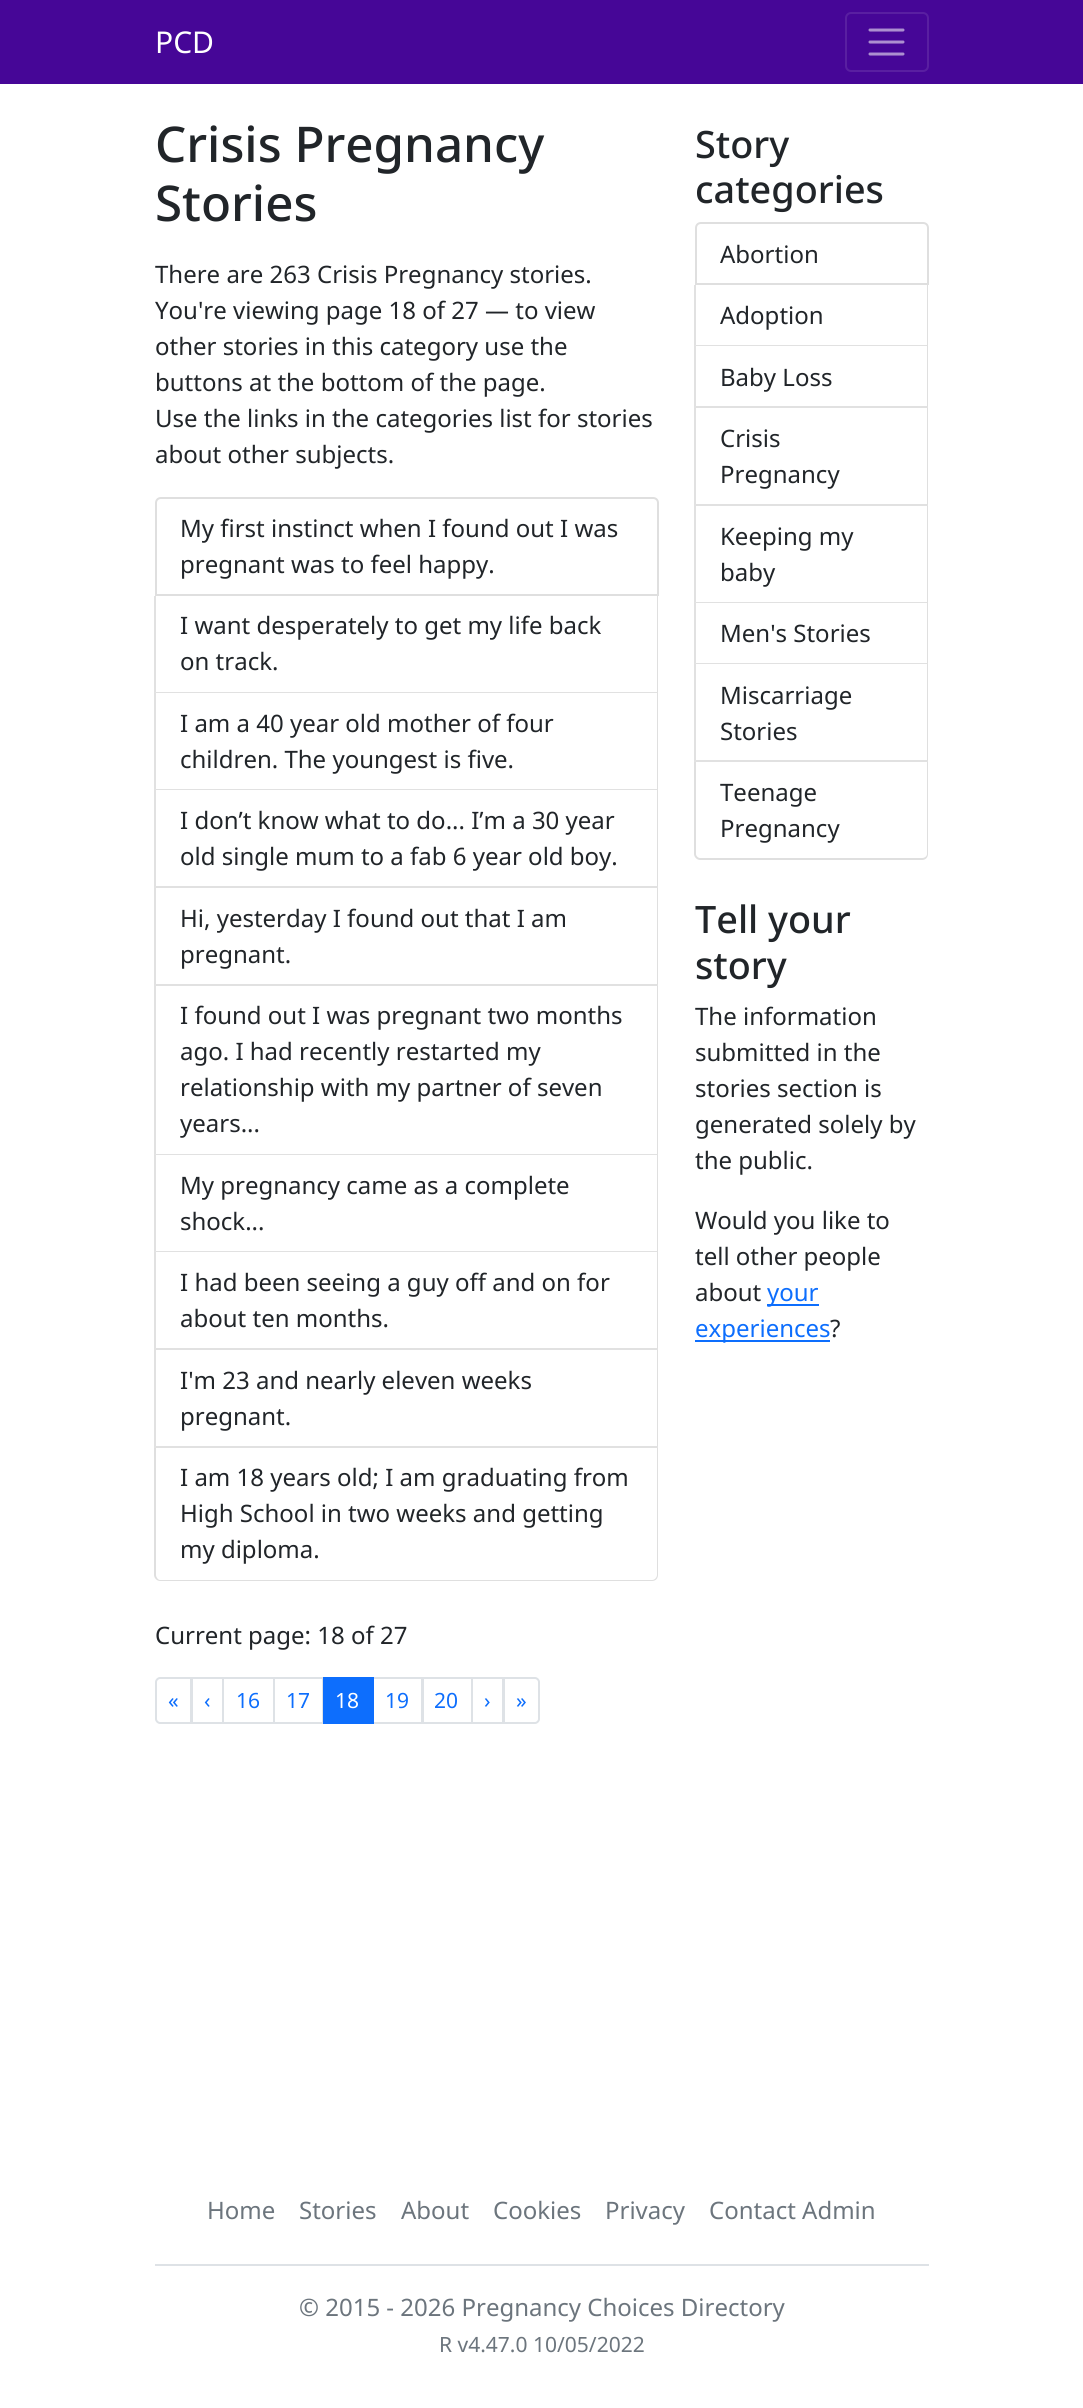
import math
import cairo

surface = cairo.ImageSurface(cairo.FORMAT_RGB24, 1083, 2408)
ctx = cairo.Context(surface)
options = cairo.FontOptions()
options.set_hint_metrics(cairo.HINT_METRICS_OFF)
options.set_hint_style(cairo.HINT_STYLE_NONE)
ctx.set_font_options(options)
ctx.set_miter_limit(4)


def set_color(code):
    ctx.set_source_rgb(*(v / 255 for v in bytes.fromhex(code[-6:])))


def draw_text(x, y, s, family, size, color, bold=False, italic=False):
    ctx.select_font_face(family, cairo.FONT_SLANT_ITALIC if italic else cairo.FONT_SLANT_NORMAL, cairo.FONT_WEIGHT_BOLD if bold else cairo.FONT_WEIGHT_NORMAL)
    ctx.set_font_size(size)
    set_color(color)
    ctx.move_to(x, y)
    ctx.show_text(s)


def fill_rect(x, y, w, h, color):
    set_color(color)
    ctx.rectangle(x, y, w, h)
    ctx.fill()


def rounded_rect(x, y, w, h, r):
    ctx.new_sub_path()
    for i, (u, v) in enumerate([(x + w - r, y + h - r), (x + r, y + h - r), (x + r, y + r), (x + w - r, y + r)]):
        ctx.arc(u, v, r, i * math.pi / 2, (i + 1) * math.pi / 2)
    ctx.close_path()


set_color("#ffffff")
ctx.paint()
fill_rect(0, 0, 1083, 84, "#460697")
draw_text(155, 53, "PCD", "Noto Sans", 30, "#ffffff")
rounded_rect(846, 13, 82, 58, 5)
set_color("#591fa1")
ctx.stroke()
ctx.new_path()
ctx.move_to(870, 30)
ctx.line_to(903, 30)
ctx.move_to(870, 42)
ctx.line_to(903, 42)
ctx.move_to(870, 54)
ctx.line_to(903, 54)
set_color("#ac8fd0")
ctx.set_line_width(3)
ctx.set_line_cap(cairo.LINE_CAP_ROUND)
ctx.stroke()
draw_text(155, 162, "Crisis Pregnancy", "Noto Sans Medium", 49.25, "#212529")
draw_text(155, 221, "Stories", "Noto Sans Medium", 49.25, "#212529")
draw_text(155, 283, "There are 263 Crisis Pregnancy stories.", "Noto Sans", 24, "#212529")
draw_text(155, 319, "You're viewing page 18 of 27 — to view", "Noto Sans", 24, "#212529")
draw_text(155, 355, "other stories in this category use the", "Noto Sans", 24, "#212529")
draw_text(155, 391, "buttons at the bottom of the page.", "Noto Sans", 24, "#212529")
draw_text(155, 427, "Use the links in the categories list for stories", "Noto Sans", 24, "#212529")
draw_text(155, 463, "about other subjects.", "Noto Sans", 24, "#212529")
ctx.new_path()
ctx.move_to(161, 498)
ctx.line_to(653, 498)
ctx.curve_to(656, 498, 658, 500, 658, 503)
ctx.line_to(658, 595)
ctx.line_to(156, 595)
ctx.line_to(156, 503)
ctx.curve_to(156, 500, 158, 498, 161, 498)
ctx.close_path()
set_color("#dfdfdf")
ctx.set_line_width(2)
ctx.set_line_cap(cairo.LINE_CAP_BUTT)
ctx.stroke()
draw_text(180, 537, "My first instinct when I found out I was", "Noto Sans", 24, "#212529")
draw_text(180, 573, "pregnant was to feel happy.", "Noto Sans", 24, "#212529")
set_color("#dfdfdf")
ctx.new_path()
ctx.move_to(658, 596)
ctx.line_to(658, 693)
ctx.line_to(657, 692)
ctx.line_to(657, 596)
ctx.close_path()
ctx.fill()
ctx.set_source_rgba(0, 0, 0, 0.12)
ctx.new_path()
ctx.move_to(658, 693)
ctx.line_to(154, 693)
ctx.line_to(156, 692)
ctx.line_to(657, 692)
ctx.close_path()
ctx.fill()
ctx.new_path()
ctx.move_to(154, 693)
ctx.line_to(154, 596)
ctx.line_to(156, 596)
ctx.line_to(156, 692)
ctx.close_path()
ctx.fill()
draw_text(180, 634, "I want desperately to get my life back", "Noto Sans", 24, "#212529")
draw_text(180, 670, "on track.", "Noto Sans", 24, "#212529")
set_color("#dfdfdf")
ctx.new_path()
ctx.move_to(658, 693)
ctx.line_to(658, 790)
ctx.line_to(657, 789)
ctx.line_to(657, 693)
ctx.close_path()
ctx.fill()
ctx.set_source_rgba(0, 0, 0, 0.12)
ctx.new_path()
ctx.move_to(658, 790)
ctx.line_to(154, 790)
ctx.line_to(156, 789)
ctx.line_to(657, 789)
ctx.close_path()
ctx.fill()
ctx.new_path()
ctx.move_to(154, 790)
ctx.line_to(154, 693)
ctx.line_to(156, 693)
ctx.line_to(156, 789)
ctx.close_path()
ctx.fill()
draw_text(180, 732, "I am a 40 year old mother of four", "Noto Sans", 24, "#212529")
draw_text(180, 768, "children. The youngest is five.", "Noto Sans", 24, "#212529")
set_color("#dfdfdf")
ctx.new_path()
ctx.move_to(658, 790)
ctx.line_to(658, 888)
ctx.line_to(657, 886)
ctx.line_to(657, 790)
ctx.close_path()
ctx.fill()
ctx.set_source_rgba(0, 0, 0, 0.12)
ctx.new_path()
ctx.move_to(658, 888)
ctx.line_to(154, 888)
ctx.line_to(156, 886)
ctx.line_to(657, 886)
ctx.close_path()
ctx.fill()
ctx.new_path()
ctx.move_to(154, 888)
ctx.line_to(154, 790)
ctx.line_to(156, 790)
ctx.line_to(156, 886)
ctx.close_path()
ctx.fill()
draw_text(180, 829, "I don’t know what to do... I’m a 30 year", "Noto Sans", 24, "#212529")
draw_text(180, 865, "old single mum to a fab 6 year old boy.", "Noto Sans", 24, "#212529")
set_color("#dfdfdf")
ctx.new_path()
ctx.move_to(658, 888)
ctx.line_to(658, 986)
ctx.line_to(657, 984)
ctx.line_to(657, 888)
ctx.close_path()
ctx.fill()
ctx.set_source_rgba(0, 0, 0, 0.12)
ctx.new_path()
ctx.move_to(658, 986)
ctx.line_to(154, 986)
ctx.line_to(156, 984)
ctx.line_to(657, 984)
ctx.close_path()
ctx.fill()
ctx.new_path()
ctx.move_to(154, 986)
ctx.line_to(154, 888)
ctx.line_to(156, 888)
ctx.line_to(156, 984)
ctx.close_path()
ctx.fill()
draw_text(180, 927, "Hi, yesterday I found out that I am", "Noto Sans", 24, "#212529")
draw_text(180, 963, "pregnant.", "Noto Sans", 24, "#212529")
set_color("#dfdfdf")
ctx.new_path()
ctx.move_to(658, 986)
ctx.line_to(658, 1155)
ctx.line_to(657, 1154)
ctx.line_to(657, 986)
ctx.close_path()
ctx.fill()
ctx.set_source_rgba(0, 0, 0, 0.12)
ctx.new_path()
ctx.move_to(658, 1155)
ctx.line_to(154, 1155)
ctx.line_to(156, 1154)
ctx.line_to(657, 1154)
ctx.close_path()
ctx.fill()
ctx.new_path()
ctx.move_to(154, 1155)
ctx.line_to(154, 986)
ctx.line_to(156, 986)
ctx.line_to(156, 1154)
ctx.close_path()
ctx.fill()
draw_text(180, 1024, "I found out I was pregnant two months", "Noto Sans", 24, "#212529")
draw_text(180, 1060, "ago. I had recently restarted my", "Noto Sans", 24, "#212529")
draw_text(180, 1096, "relationship with my partner of seven", "Noto Sans", 24, "#212529")
draw_text(180, 1132, "years...", "Noto Sans", 24, "#212529")
set_color("#dfdfdf")
ctx.new_path()
ctx.move_to(658, 1155)
ctx.line_to(658, 1252)
ctx.line_to(657, 1251)
ctx.line_to(657, 1155)
ctx.close_path()
ctx.fill()
ctx.set_source_rgba(0, 0, 0, 0.12)
ctx.new_path()
ctx.move_to(658, 1252)
ctx.line_to(154, 1252)
ctx.line_to(156, 1251)
ctx.line_to(657, 1251)
ctx.close_path()
ctx.fill()
ctx.new_path()
ctx.move_to(154, 1252)
ctx.line_to(154, 1155)
ctx.line_to(156, 1155)
ctx.line_to(156, 1251)
ctx.close_path()
ctx.fill()
draw_text(180, 1194, "My pregnancy came as a complete", "Noto Sans", 24, "#212529")
draw_text(180, 1230, "shock...", "Noto Sans", 24, "#212529")
set_color("#dfdfdf")
ctx.new_path()
ctx.move_to(658, 1252)
ctx.line_to(658, 1350)
ctx.line_to(657, 1348)
ctx.line_to(657, 1252)
ctx.close_path()
ctx.fill()
ctx.set_source_rgba(0, 0, 0, 0.12)
ctx.new_path()
ctx.move_to(658, 1350)
ctx.line_to(154, 1350)
ctx.line_to(156, 1348)
ctx.line_to(657, 1348)
ctx.close_path()
ctx.fill()
ctx.new_path()
ctx.move_to(154, 1350)
ctx.line_to(154, 1252)
ctx.line_to(156, 1252)
ctx.line_to(156, 1348)
ctx.close_path()
ctx.fill()
draw_text(180, 1291, "I had been seeing a guy off and on for", "Noto Sans", 24, "#212529")
draw_text(180, 1327, "about ten months.", "Noto Sans", 24, "#212529")
set_color("#dfdfdf")
ctx.new_path()
ctx.move_to(658, 1350)
ctx.line_to(658, 1448)
ctx.line_to(657, 1446)
ctx.line_to(657, 1350)
ctx.close_path()
ctx.fill()
ctx.set_source_rgba(0, 0, 0, 0.12)
ctx.new_path()
ctx.move_to(658, 1448)
ctx.line_to(154, 1448)
ctx.line_to(156, 1446)
ctx.line_to(657, 1446)
ctx.close_path()
ctx.fill()
ctx.new_path()
ctx.move_to(154, 1448)
ctx.line_to(154, 1350)
ctx.line_to(156, 1350)
ctx.line_to(156, 1446)
ctx.close_path()
ctx.fill()
draw_text(180, 1389, "I'm 23 and nearly eleven weeks", "Noto Sans", 24, "#212529")
draw_text(180, 1425, "pregnant.", "Noto Sans", 24, "#212529")
set_color("#dfdfdf")
ctx.set_fill_rule(cairo.FILL_RULE_EVEN_ODD)
ctx.new_path()
ctx.move_to(154, 1448)
ctx.line_to(658, 1448)
ctx.line_to(658, 1575)
ctx.curve_to(658, 1578, 656, 1581, 652, 1581)
ctx.line_to(160, 1581)
ctx.curve_to(157, 1581, 154, 1578, 154, 1575)
ctx.close_path()
ctx.move_to(156, 1448)
ctx.line_to(657, 1448)
ctx.line_to(657, 1575)
ctx.curve_to(657, 1577, 655, 1580, 652, 1580)
ctx.line_to(160, 1580)
ctx.curve_to(158, 1580, 156, 1577, 156, 1575)
ctx.close_path()
ctx.fill()
draw_text(180, 1486, "I am 18 years old; I am graduating from", "Noto Sans", 24, "#212529")
draw_text(180, 1522, "High School in two weeks and getting", "Noto Sans", 24, "#212529")
draw_text(180, 1558, "my diploma.", "Noto Sans", 24, "#212529")
draw_text(155, 1644, "Current page: 18 of 27", "Noto Sans", 24, "#212529")
ctx.new_path()
ctx.move_to(160, 1678)
ctx.line_to(191, 1678)
ctx.line_to(191, 1723)
ctx.line_to(160, 1723)
ctx.curve_to(158, 1723, 156, 1721, 156, 1719)
ctx.line_to(156, 1682)
ctx.curve_to(156, 1680, 158, 1678, 160, 1678)
ctx.close_path()
set_color("#dee2e6")
ctx.stroke()
draw_text(168, 1708, "«", "Noto Sans", 21, "#0d6efd")
ctx.rectangle(192, 1678, 31, 45)
set_color("#dee2e6")
ctx.stroke()
draw_text(204, 1708, "‹", "Noto Sans", 21, "#0d6efd")
ctx.rectangle(223, 1678, 51, 45)
set_color("#dee2e6")
ctx.stroke()
draw_text(236, 1708, "16", "Noto Sans", 21, "#0d6efd")
ctx.rectangle(274, 1678, 49, 45)
set_color("#dee2e6")
ctx.stroke()
draw_text(286, 1708, "17", "Noto Sans", 21, "#0d6efd")
ctx.rectangle(373, 1678, 49, 45)
set_color("#dee2e6")
ctx.stroke()
fill_rect(323, 1677, 51, 47, "#0d6efd")
draw_text(335, 1708, "18", "Noto Sans", 21, "#ffffff")
draw_text(385, 1708, "19", "Noto Sans", 21, "#0d6efd")
ctx.rectangle(423, 1678, 49, 45)
set_color("#dee2e6")
ctx.stroke()
draw_text(434, 1708, "20", "Noto Sans", 21, "#0d6efd")
ctx.rectangle(472, 1678, 31, 45)
set_color("#dee2e6")
ctx.stroke()
draw_text(484, 1708, "›", "Noto Sans", 21, "#0d6efd")
set_color("#ffffff")
ctx.new_path()
ctx.move_to(504, 1678)
ctx.line_to(535, 1678)
ctx.curve_to(537, 1678, 539, 1680, 539, 1682)
ctx.line_to(539, 1719)
ctx.curve_to(539, 1721, 537, 1723, 535, 1723)
ctx.line_to(504, 1723)
ctx.close_path()
ctx.fill_preserve()
set_color("#dee2e6")
ctx.stroke()
draw_text(516, 1708, "»", "Noto Sans", 21, "#0d6efd")
draw_text(695, 158, "Story", "Noto Sans Medium", 37.75, "#212529")
draw_text(695, 203, "categories", "Noto Sans Medium", 37.75, "#212529")
ctx.new_path()
ctx.move_to(701, 223)
ctx.line_to(923, 223)
ctx.curve_to(926, 223, 928, 225, 928, 228)
ctx.line_to(928, 284)
ctx.line_to(696, 284)
ctx.line_to(696, 228)
ctx.curve_to(696, 225, 698, 223, 701, 223)
ctx.close_path()
set_color("#dfdfdf")
ctx.stroke()
draw_text(720, 263, "Abortion", "Noto Sans", 24, "#212529")
set_color("#dfdfdf")
ctx.set_fill_rule(cairo.FILL_RULE_WINDING)
ctx.new_path()
ctx.move_to(928, 285)
ctx.line_to(928, 346)
ctx.line_to(927, 345)
ctx.line_to(927, 285)
ctx.close_path()
ctx.fill()
ctx.set_source_rgba(0, 0, 0, 0.12)
ctx.new_path()
ctx.move_to(928, 346)
ctx.line_to(694, 346)
ctx.line_to(696, 345)
ctx.line_to(927, 345)
ctx.close_path()
ctx.fill()
ctx.new_path()
ctx.move_to(694, 346)
ctx.line_to(694, 285)
ctx.line_to(696, 285)
ctx.line_to(696, 345)
ctx.close_path()
ctx.fill()
draw_text(720, 324, "Adoption", "Noto Sans", 24, "#212529")
set_color("#dfdfdf")
ctx.new_path()
ctx.move_to(928, 346)
ctx.line_to(928, 408)
ctx.line_to(927, 406)
ctx.line_to(927, 346)
ctx.close_path()
ctx.fill()
ctx.set_source_rgba(0, 0, 0, 0.12)
ctx.new_path()
ctx.move_to(928, 408)
ctx.line_to(694, 408)
ctx.line_to(696, 406)
ctx.line_to(927, 406)
ctx.close_path()
ctx.fill()
ctx.new_path()
ctx.move_to(694, 408)
ctx.line_to(694, 346)
ctx.line_to(696, 346)
ctx.line_to(696, 406)
ctx.close_path()
ctx.fill()
draw_text(720, 386, "Baby Loss", "Noto Sans", 24, "#212529")
set_color("#dfdfdf")
ctx.new_path()
ctx.move_to(928, 408)
ctx.line_to(928, 506)
ctx.line_to(927, 504)
ctx.line_to(927, 408)
ctx.close_path()
ctx.fill()
ctx.set_source_rgba(0, 0, 0, 0.12)
ctx.new_path()
ctx.move_to(928, 506)
ctx.line_to(694, 506)
ctx.line_to(696, 504)
ctx.line_to(927, 504)
ctx.close_path()
ctx.fill()
ctx.new_path()
ctx.move_to(694, 506)
ctx.line_to(694, 408)
ctx.line_to(696, 408)
ctx.line_to(696, 504)
ctx.close_path()
ctx.fill()
draw_text(720, 447, "Crisis", "Noto Sans", 24, "#212529")
draw_text(720, 483, "Pregnancy", "Noto Sans", 24, "#212529")
set_color("#dfdfdf")
ctx.new_path()
ctx.move_to(928, 506)
ctx.line_to(928, 603)
ctx.line_to(927, 602)
ctx.line_to(927, 506)
ctx.close_path()
ctx.fill()
ctx.set_source_rgba(0, 0, 0, 0.12)
ctx.new_path()
ctx.move_to(928, 603)
ctx.line_to(694, 603)
ctx.line_to(696, 602)
ctx.line_to(927, 602)
ctx.close_path()
ctx.fill()
ctx.new_path()
ctx.move_to(694, 603)
ctx.line_to(694, 506)
ctx.line_to(696, 506)
ctx.line_to(696, 602)
ctx.close_path()
ctx.fill()
draw_text(720, 545, "Keeping my", "Noto Sans", 24, "#212529")
draw_text(720, 581, "baby", "Noto Sans", 24, "#212529")
set_color("#dfdfdf")
ctx.new_path()
ctx.move_to(928, 603)
ctx.line_to(928, 664)
ctx.line_to(927, 663)
ctx.line_to(927, 603)
ctx.close_path()
ctx.fill()
ctx.set_source_rgba(0, 0, 0, 0.12)
ctx.new_path()
ctx.move_to(928, 664)
ctx.line_to(694, 664)
ctx.line_to(696, 663)
ctx.line_to(927, 663)
ctx.close_path()
ctx.fill()
ctx.new_path()
ctx.move_to(694, 664)
ctx.line_to(694, 603)
ctx.line_to(696, 603)
ctx.line_to(696, 663)
ctx.close_path()
ctx.fill()
draw_text(720, 642, "Men's Stories", "Noto Sans", 24, "#212529")
set_color("#dfdfdf")
ctx.new_path()
ctx.move_to(928, 664)
ctx.line_to(928, 762)
ctx.line_to(927, 760)
ctx.line_to(927, 664)
ctx.close_path()
ctx.fill()
ctx.set_source_rgba(0, 0, 0, 0.12)
ctx.new_path()
ctx.move_to(928, 762)
ctx.line_to(694, 762)
ctx.line_to(696, 760)
ctx.line_to(927, 760)
ctx.close_path()
ctx.fill()
ctx.new_path()
ctx.move_to(694, 762)
ctx.line_to(694, 664)
ctx.line_to(696, 664)
ctx.line_to(696, 760)
ctx.close_path()
ctx.fill()
draw_text(720, 704, "Miscarriage", "Noto Sans", 24, "#212529")
draw_text(720, 740, "Stories", "Noto Sans", 24, "#212529")
set_color("#dfdfdf")
ctx.set_fill_rule(cairo.FILL_RULE_EVEN_ODD)
ctx.new_path()
ctx.move_to(694, 762)
ctx.line_to(928, 762)
ctx.line_to(928, 854)
ctx.curve_to(928, 857, 926, 860, 922, 860)
ctx.line_to(700, 860)
ctx.curve_to(697, 860, 694, 857, 694, 854)
ctx.close_path()
ctx.move_to(696, 762)
ctx.line_to(927, 762)
ctx.line_to(927, 854)
ctx.curve_to(927, 856, 925, 858, 922, 858)
ctx.line_to(700, 858)
ctx.curve_to(698, 858, 696, 856, 696, 854)
ctx.close_path()
ctx.fill()
draw_text(720, 801, "Teenage", "Noto Sans", 24, "#212529")
draw_text(720, 837, "Pregnancy", "Noto Sans", 24, "#212529")
draw_text(695, 933, "Tell your", "Noto Sans Medium", 37.75, "#212529")
draw_text(695, 979, "story", "Noto Sans Medium", 37.75, "#212529")
draw_text(695, 1025, "The information", "Noto Sans", 24, "#212529")
draw_text(695, 1061, "submitted in the", "Noto Sans", 24, "#212529")
draw_text(695, 1097, "stories section is", "Noto Sans", 24, "#212529")
draw_text(695, 1133, "generated solely by", "Noto Sans", 24, "#212529")
draw_text(695, 1169, "the public.", "Noto Sans", 24, "#212529")
draw_text(695, 1229, "Would you like to", "Noto Sans", 24, "#212529")
draw_text(695, 1265, "tell other people", "Noto Sans", 24, "#212529")
draw_text(695, 1301, "about", "Noto Sans", 24, "#212529")
fill_rect(767, 1304, 52, 2, "#0d6efd")
draw_text(767, 1301, "your", "Noto Sans", 24, "#0d6efd")
fill_rect(695, 1340, 135, 2, "#0d6efd")
draw_text(695, 1337, "experiences", "Noto Sans", 24, "#0d6efd")
draw_text(830, 1337, "?", "Noto Sans", 24, "#212529")
fill_rect(155, 2264, 774, 2, "#dee2e6")
draw_text(207, 2219, "Home", "Noto Sans", 24, "#6c757d")
draw_text(299, 2219, "Stories", "Noto Sans", 24, "#6c757d")
draw_text(401, 2219, "About", "Noto Sans", 24, "#6c757d")
draw_text(493, 2219, "Cookies", "Noto Sans", 24, "#6c757d")
draw_text(605, 2219, "Privacy", "Noto Sans", 24, "#6c757d")
draw_text(709, 2219, "Contact Admin", "Noto Sans", 24, "#6c757d")
draw_text(299, 2316, "© 2015 - 2026 Pregnancy Choices Directory", "Noto Sans", 24, "#6c757d")
draw_text(439, 2352, "R v4.47.0 10/05/2022", "Noto Sans", 21, "#6c757d")
surface.write_to_png("output.png")
